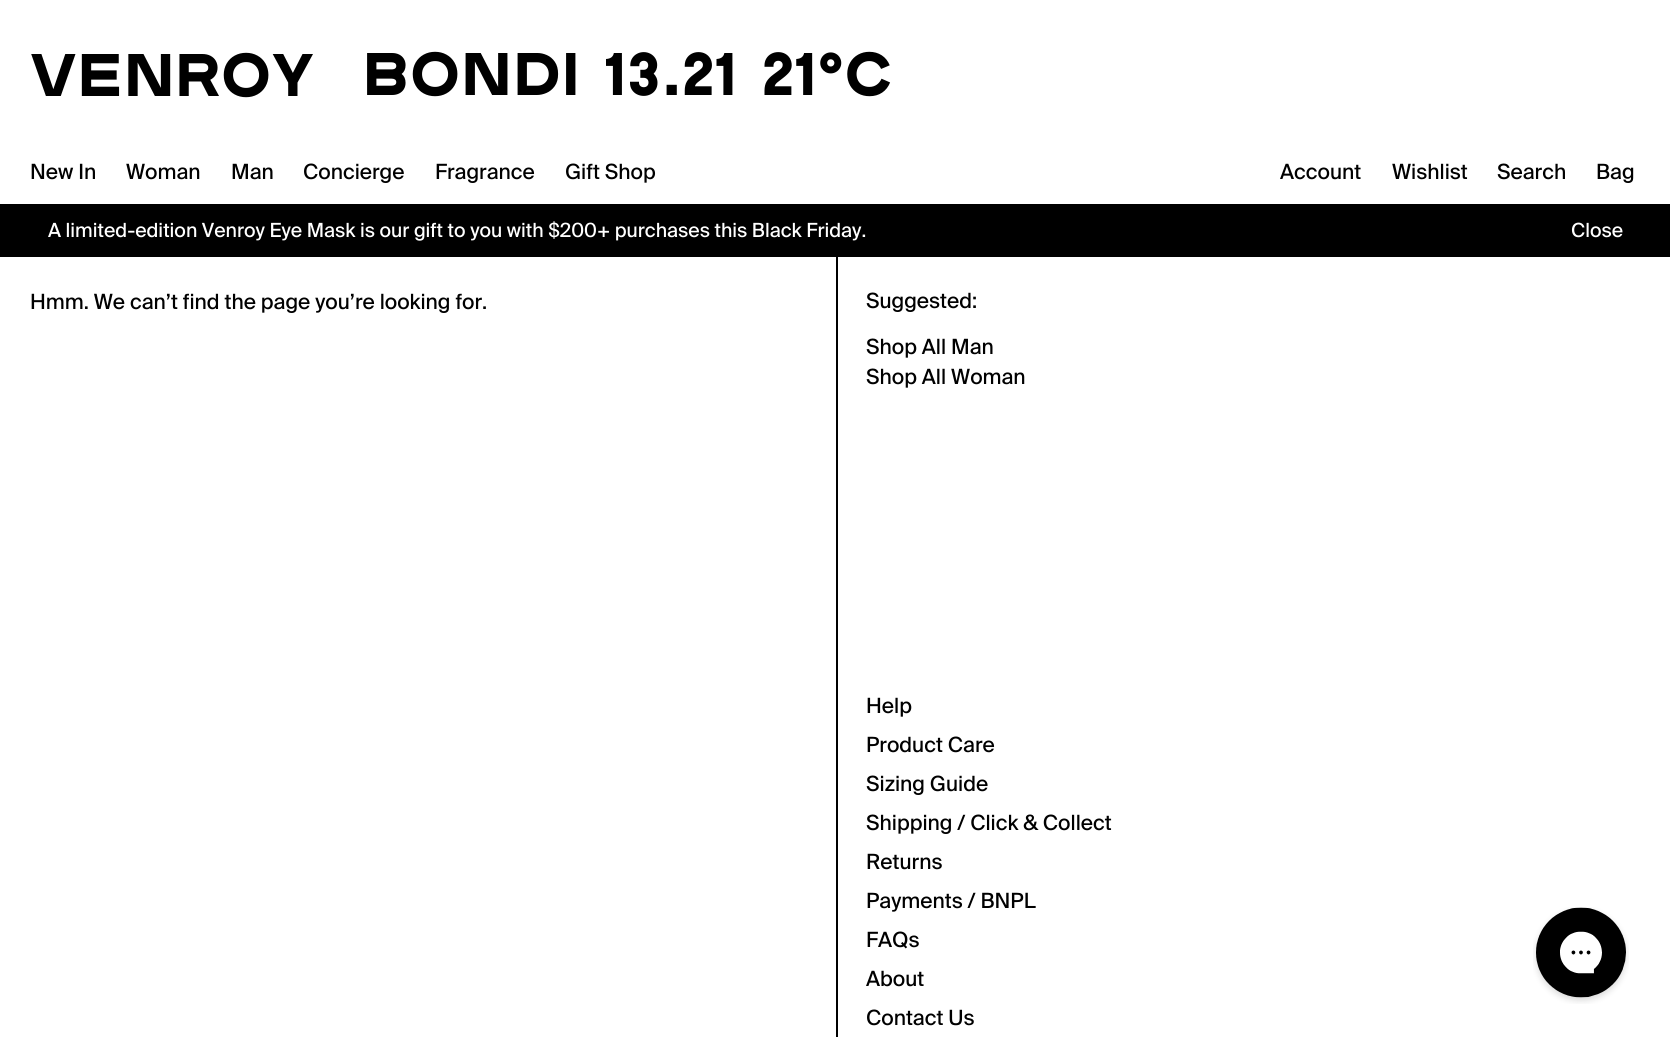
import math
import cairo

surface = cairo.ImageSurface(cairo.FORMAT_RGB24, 1670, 1037)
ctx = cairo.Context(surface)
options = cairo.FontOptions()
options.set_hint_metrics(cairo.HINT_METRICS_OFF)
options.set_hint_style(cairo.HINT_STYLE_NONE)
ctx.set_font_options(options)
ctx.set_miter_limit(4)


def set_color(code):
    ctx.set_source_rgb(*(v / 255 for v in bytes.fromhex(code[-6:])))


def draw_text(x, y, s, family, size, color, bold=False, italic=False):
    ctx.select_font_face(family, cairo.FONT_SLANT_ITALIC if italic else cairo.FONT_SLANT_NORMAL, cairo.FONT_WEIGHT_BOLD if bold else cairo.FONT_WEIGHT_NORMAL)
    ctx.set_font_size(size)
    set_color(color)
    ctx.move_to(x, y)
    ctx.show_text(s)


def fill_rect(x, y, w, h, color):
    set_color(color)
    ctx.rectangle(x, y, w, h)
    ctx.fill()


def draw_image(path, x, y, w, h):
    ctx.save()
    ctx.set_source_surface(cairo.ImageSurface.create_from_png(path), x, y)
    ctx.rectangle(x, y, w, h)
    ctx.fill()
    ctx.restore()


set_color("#ffffff")
ctx.paint()
fill_rect(0, 204, 1670, 53, "#000000")
draw_text(30, 96, "VENROY", "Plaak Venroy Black", 60, "#000000")
draw_text(362, 95, "BONDI 13.21 21°C", "Plaak Venroy Black", 60, "#000000")
draw_text(30, 179, "New In", "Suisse", 21, "#000000")
draw_text(126, 179, "Woman", "Suisse", 21, "#000000")
draw_text(231, 179, "Man", "Suisse", 21, "#000000")
draw_text(303, 179, "Concierge", "Suisse", 21, "#000000")
draw_text(435, 179, "Fragrance", "Suisse", 21, "#000000")
draw_text(565, 179, "Gift Shop", "Suisse", 21, "#000000")
draw_text(1280, 179, "Account", "Suisse", 21, "#000000")
draw_text(1392, 179, "Wishlist", "Suisse", 21, "#000000")
draw_text(1497, 179, "Search", "Suisse", 21, "#000000")
draw_text(1596, 179, "Bag", "Suisse", 21, "#000000")
draw_text(48, 237, "A limited-edition Venroy Eye Mask is our gift to you with $200+ purchases this Black Friday.", "Suisse", 19.5, "#ffffff")
draw_text(1571, 237, "Close", "Suisse", 19.5, "#ffffff")
fill_rect(836, 257, 2, 780, "#000000")
draw_text(30, 309, "Hmm. We can’t find the page you’re looking for.", "Suisse", 21, "#000000")
draw_text(866, 308, "Suggested:", "Suisse", 21, "#000000")
draw_text(866, 354, "Shop All Man", "Suisse", 21, "#000000")
draw_text(866, 384, "Shop All Woman", "Suisse", 21, "#000000")
draw_text(866, 713, "Help", "Suisse", 21, "#000000")
draw_text(866, 752, "Product Care", "Suisse", 21, "#000000")
draw_text(866, 791, "Sizing Guide", "Suisse", 21, "#000000")
draw_text(866, 830, "Shipping / Click & Collect", "Suisse", 21, "#000000")
draw_text(866, 869, "Returns", "Suisse", 21, "#000000")
draw_text(866, 908, "Payments / BNPL", "Suisse", 21, "#000000")
draw_text(866, 947, "FAQs", "Suisse", 21, "#000000")
draw_text(866, 986, "About", "Suisse", 21, "#000000")
draw_text(866, 1025, "Contact Us", "Suisse", 21, "#000000")
draw_image("assets/img1.png", 1533, 907, 96, 97)
surface.write_to_png("output.png")
